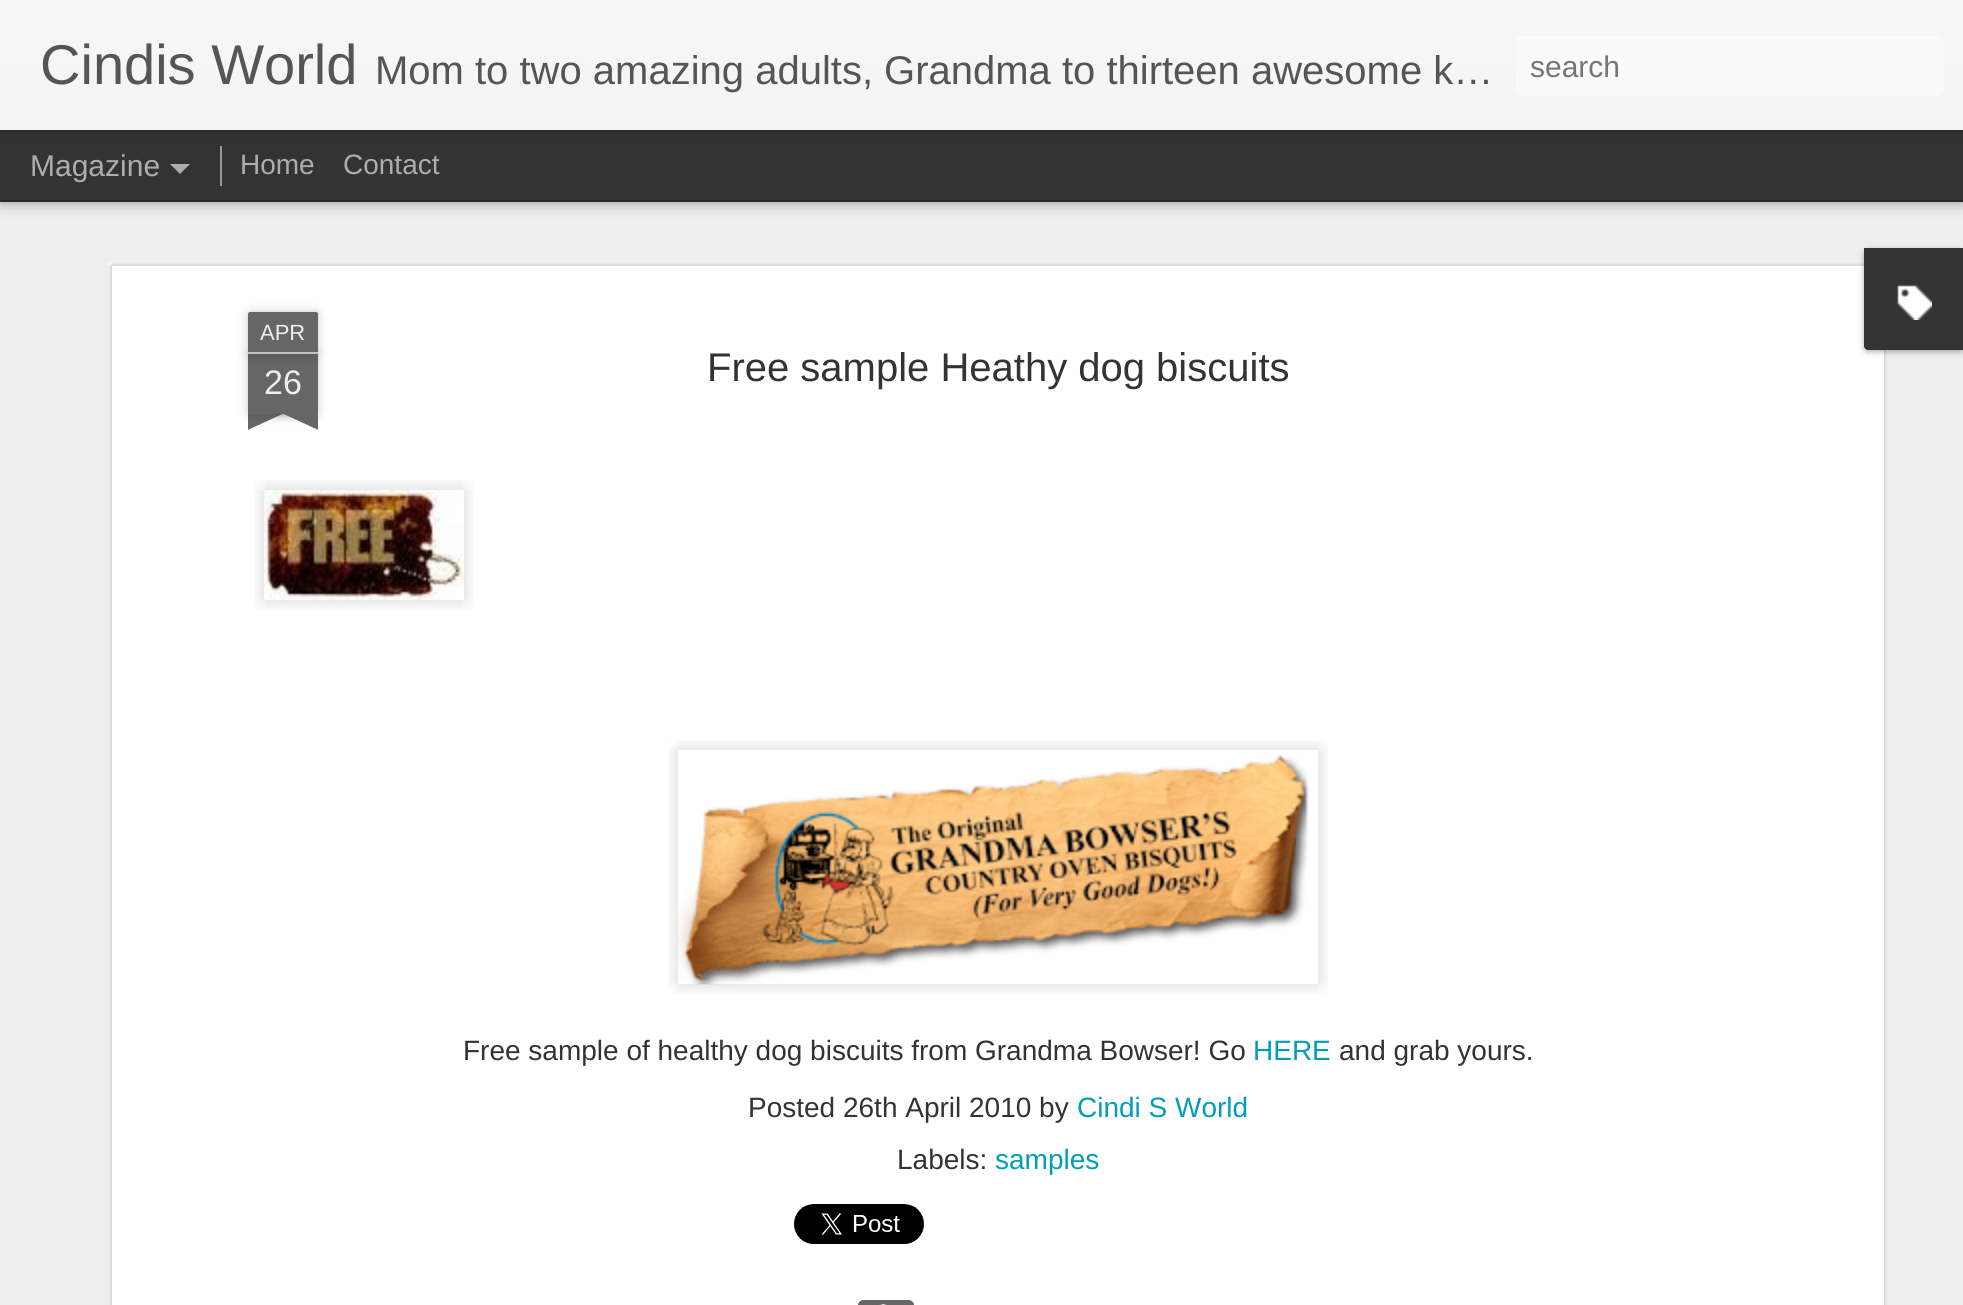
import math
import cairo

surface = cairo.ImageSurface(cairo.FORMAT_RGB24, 1963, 1305)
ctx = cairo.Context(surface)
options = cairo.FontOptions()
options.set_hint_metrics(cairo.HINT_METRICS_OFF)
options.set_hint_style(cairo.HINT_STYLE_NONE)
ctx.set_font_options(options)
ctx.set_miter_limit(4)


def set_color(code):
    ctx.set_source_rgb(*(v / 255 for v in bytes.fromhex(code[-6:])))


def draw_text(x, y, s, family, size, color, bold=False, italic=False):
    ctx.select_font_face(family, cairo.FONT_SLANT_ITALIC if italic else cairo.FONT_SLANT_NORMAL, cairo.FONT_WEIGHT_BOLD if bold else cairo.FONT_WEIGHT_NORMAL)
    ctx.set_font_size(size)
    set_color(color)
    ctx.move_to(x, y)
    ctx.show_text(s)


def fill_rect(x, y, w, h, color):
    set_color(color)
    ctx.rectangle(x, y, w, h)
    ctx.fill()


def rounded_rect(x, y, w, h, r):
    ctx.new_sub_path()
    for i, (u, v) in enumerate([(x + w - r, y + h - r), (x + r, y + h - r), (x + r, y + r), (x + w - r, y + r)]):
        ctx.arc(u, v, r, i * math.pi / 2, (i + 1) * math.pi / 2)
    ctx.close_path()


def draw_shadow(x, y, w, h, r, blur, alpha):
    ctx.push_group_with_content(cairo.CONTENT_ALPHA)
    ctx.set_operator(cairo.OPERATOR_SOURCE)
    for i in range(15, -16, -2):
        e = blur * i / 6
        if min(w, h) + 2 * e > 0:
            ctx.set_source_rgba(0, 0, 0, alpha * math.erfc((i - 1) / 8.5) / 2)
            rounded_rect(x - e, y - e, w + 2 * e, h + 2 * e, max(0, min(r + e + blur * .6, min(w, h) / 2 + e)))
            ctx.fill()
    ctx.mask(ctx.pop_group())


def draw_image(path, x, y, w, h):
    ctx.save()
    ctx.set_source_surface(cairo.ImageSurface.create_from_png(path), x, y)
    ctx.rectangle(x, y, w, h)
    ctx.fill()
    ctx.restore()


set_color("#333333")
ctx.paint()
fill_rect(0, 202, 1963, 1103, "#eeeeee")
set_color("#000000")
draw_shadow(0, 130, 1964, 70, 0, 8, 0.5)
fill_rect(0, 130, 1963, 70, "#333333")
set_color("#000000")
draw_shadow(0, 0, 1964, 130, 0, 5, 0.3)
gradient = cairo.LinearGradient(0, 0, 0, 130)
gradient.add_color_stop_rgba(0, 0.969, 0.969, 0.969, 1)
gradient.add_color_stop_rgba(1, 0.957, 0.957, 0.957, 1)
ctx.set_source(gradient)
ctx.rectangle(0, 0, 1963, 130)
ctx.fill()
draw_text(40, 84, "Cindis World", "Liberation Sans", 56, "#555555")
draw_text(375, 84, "Mom to two amazing adults, Grandma to thirteen awesome k…", "Liberation Sans", 40, "#555555")
set_color("#fafafa")
rounded_rect(1516, 36, 428, 60, 6)
ctx.fill()
draw_text(1530, 77, "search", "Liberation Sans", 30, "#757575")
draw_text(30, 176, "Magazine", "Liberation Sans", 30, "#adadad")
ctx.new_path()
ctx.move_to(170, 164)
ctx.line_to(190, 164)
ctx.line_to(180, 174)
ctx.close_path()
ctx.fill()
fill_rect(220, 146, 2, 40, "#999999")
draw_text(240, 174, "Home", "Liberation Sans", 28, "#adadad")
draw_text(343, 174, "Contact", "Liberation Sans", 28, "#adadad")
fill_rect(108, 262, 1780, 1043, "#ffffff")
draw_image("assets/img2.png", 108, 262, 1780, 1043)
set_color("#000000")
draw_shadow(1864, 250, 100, 102, 4, 3, 0.3)
set_color("#333333")
ctx.new_path()
ctx.move_to(1864, 248)
ctx.line_to(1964, 248)
ctx.line_to(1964, 350)
ctx.line_to(1868, 350)
ctx.curve_to(1866, 350, 1864, 348, 1864, 346)
ctx.close_path()
ctx.fill()
draw_image("assets/img1.png", 1897, 285, 35, 35)
set_color("#000000")
draw_shadow(248, 354, 70, 60, 0, 5, 0.2)
fill_rect(248, 354, 70, 60, "#666666")
set_color("#000000")
draw_shadow(248, 312, 70, 42, 2, 5, 0.2)
set_color("#666666")
ctx.new_path()
ctx.move_to(250, 312)
ctx.line_to(316, 312)
ctx.curve_to(317, 312, 318, 313, 318, 314)
ctx.line_to(318, 354)
ctx.line_to(248, 354)
ctx.line_to(248, 314)
ctx.curve_to(248, 313, 249, 312, 250, 312)
ctx.close_path()
ctx.fill()
fill_rect(248, 352, 70, 2, "#c2c2c2")
draw_text(260, 340, "APR", "Liberation Sans", 22, "#eeeeee")
draw_text(264, 394, "26", "Liberation Sans", 34, "#eeeeee")
ctx.save()
ctx.rectangle(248, 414, 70, 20)
ctx.clip()
set_color("#000000")
draw_shadow(230, 394, 100, 20, 0, 5, 0.2)
ctx.restore()
ctx.save()
ctx.rectangle(248, 414, 70, 20)
ctx.clip()
set_color("#666666")
ctx.new_path()
ctx.move_to(230, 416)
ctx.line_to(321, 374)
ctx.line_to(330, 392)
ctx.line_to(239, 434)
ctx.close_path()
ctx.fill()
ctx.restore()
ctx.save()
ctx.rectangle(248, 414, 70, 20)
ctx.clip()
set_color("#000000")
draw_shadow(236, 394, 100, 20, 0, 5, 0.2)
ctx.restore()
ctx.save()
ctx.rectangle(248, 414, 70, 20)
ctx.clip()
set_color("#666666")
ctx.new_path()
ctx.move_to(245, 374)
ctx.line_to(336, 416)
ctx.line_to(327, 434)
ctx.line_to(236, 392)
ctx.close_path()
ctx.fill()
ctx.restore()
draw_text(707, 381, "Free sample Heathy dog biscuits", "Liberation Sans", 40, "#333333")
draw_image("assets/img3.png", 254, 480, 220, 130)
draw_image("assets/img4.png", 263, 489, 202, 112)
draw_image("assets/img5.png", 668, 740, 660, 254)
draw_image("assets/img6.png", 677, 749, 642, 236)
draw_text(463, 1060, "Free sample of healthy dog biscuits from Grandma Bowser! Go", "Liberation Sans", 28, "#333333")
draw_text(1253, 1060, "HERE", "Liberation Sans", 28, "#009eb8")
draw_text(1339, 1060, "and grab yours.", "Liberation Sans", 28, "#333333")
draw_text(748, 1117, "Posted 26th April 2010 by", "Liberation Sans", 28, "#333333")
draw_text(1077, 1117, "Cindi S World", "Liberation Sans", 28, "#009eb8")
draw_text(897, 1169, "Labels:", "Liberation Sans", 28, "#333333")
draw_text(995, 1169, "samples", "Liberation Sans", 28, "#009eb8")
draw_image("assets/img7.png", 794, 1204, 130, 40)
set_color("#666666")
ctx.new_path()
ctx.move_to(864, 1300)
ctx.line_to(908, 1300)
ctx.curve_to(911.5, 1300, 914, 1302.5, 914, 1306)
ctx.line_to(858, 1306)
ctx.curve_to(858, 1302.5, 860.5, 1300, 864, 1300)
ctx.close_path()
ctx.fill()
draw_image("assets/img8.png", 879, 1304, 8, 1)
rounded_rect(859, 1301, 54, 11, 5)
ctx.stroke()
surface.write_to_png("output.png")
